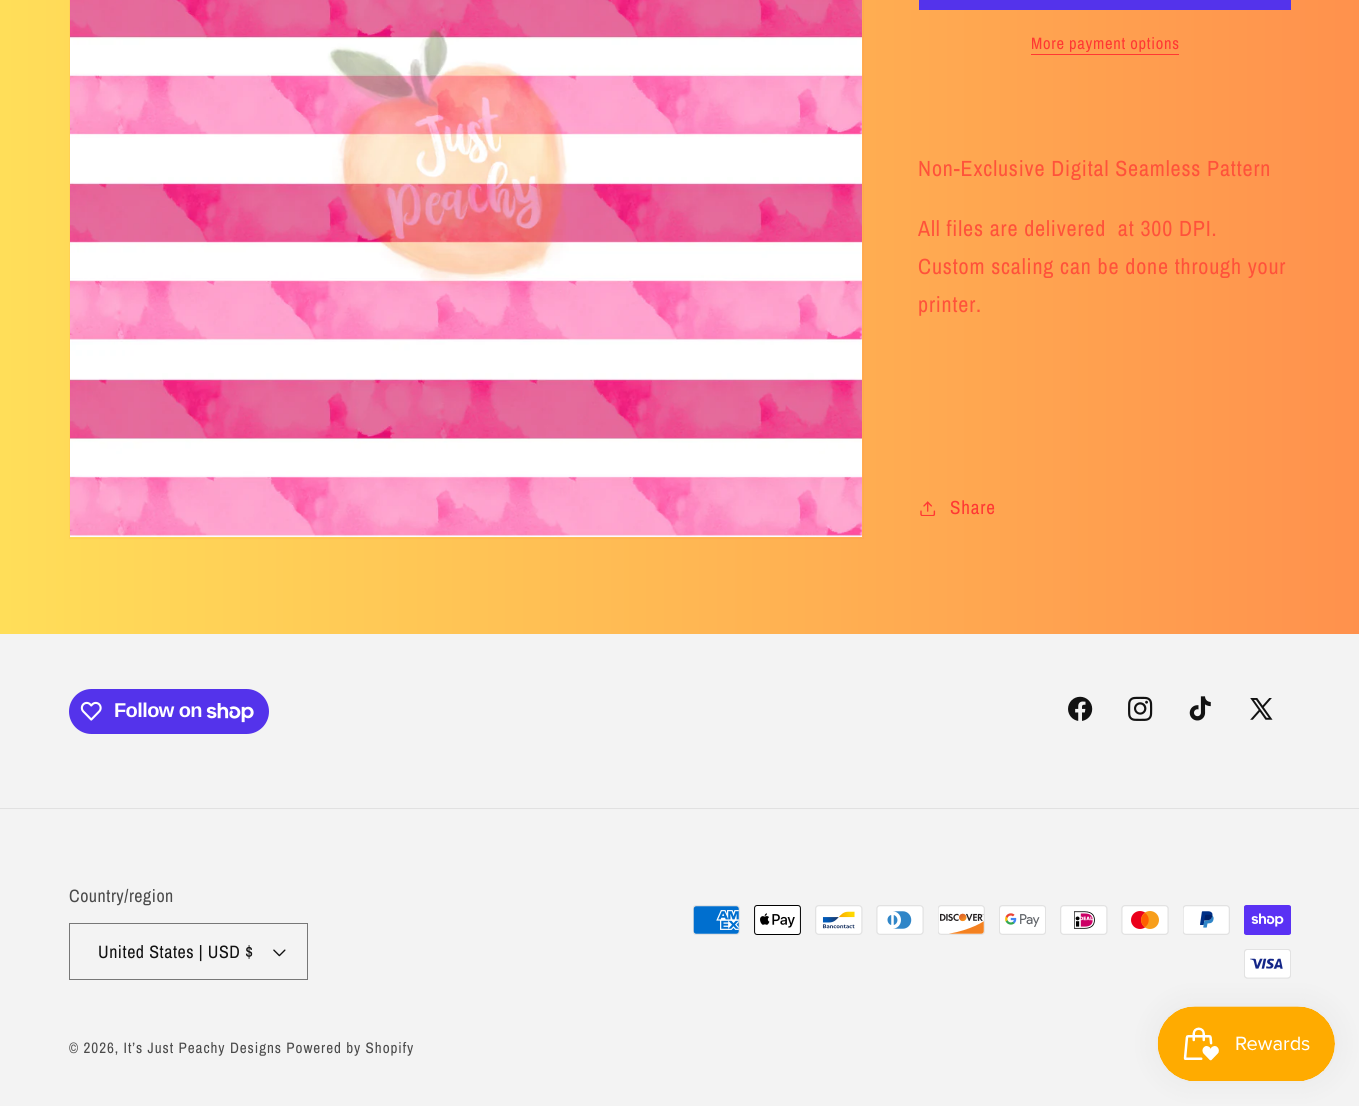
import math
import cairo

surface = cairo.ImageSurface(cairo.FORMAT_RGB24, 1359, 1106)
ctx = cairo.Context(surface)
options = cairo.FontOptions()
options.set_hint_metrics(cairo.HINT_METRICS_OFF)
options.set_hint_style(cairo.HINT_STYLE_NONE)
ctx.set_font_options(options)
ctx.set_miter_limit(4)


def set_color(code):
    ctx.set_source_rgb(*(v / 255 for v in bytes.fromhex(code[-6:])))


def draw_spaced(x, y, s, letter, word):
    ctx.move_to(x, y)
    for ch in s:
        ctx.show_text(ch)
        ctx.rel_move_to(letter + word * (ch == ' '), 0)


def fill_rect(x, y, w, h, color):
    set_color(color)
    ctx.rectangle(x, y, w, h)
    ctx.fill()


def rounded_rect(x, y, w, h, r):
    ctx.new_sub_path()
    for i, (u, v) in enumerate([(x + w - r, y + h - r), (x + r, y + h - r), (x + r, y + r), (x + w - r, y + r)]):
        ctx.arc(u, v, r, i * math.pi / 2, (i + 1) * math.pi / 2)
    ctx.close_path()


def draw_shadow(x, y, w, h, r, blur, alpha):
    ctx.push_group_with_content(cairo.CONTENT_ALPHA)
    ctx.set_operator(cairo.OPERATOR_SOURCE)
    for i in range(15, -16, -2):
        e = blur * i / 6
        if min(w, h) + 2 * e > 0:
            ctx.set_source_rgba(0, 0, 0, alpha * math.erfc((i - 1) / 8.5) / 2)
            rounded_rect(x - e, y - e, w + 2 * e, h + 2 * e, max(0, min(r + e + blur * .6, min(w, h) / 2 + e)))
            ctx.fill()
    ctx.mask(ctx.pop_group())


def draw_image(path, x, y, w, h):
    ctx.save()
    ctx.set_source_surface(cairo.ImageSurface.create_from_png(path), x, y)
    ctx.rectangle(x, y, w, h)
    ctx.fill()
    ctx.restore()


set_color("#ffffff")
ctx.paint()
gradient = cairo.LinearGradient(0, 553, 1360, 553)
gradient.add_color_stop_rgba(0, 1, 0.871, 0.349, 1)
gradient.add_color_stop_rgba(1, 1, 0.569, 0.302, 1)
ctx.set_source(gradient)
ctx.rectangle(0, 0, 1359, 634)
ctx.fill()
ctx.rectangle(69.5, -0.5, 794, 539)
ctx.set_source_rgba(1, 0.22, 0.2, 0.05)
ctx.set_line_width(1)
ctx.stroke()
draw_image("assets/img1.png", 70, 0, 792, 537)
fill_rect(919, 0, 372, 10, "#5433eb")
ctx.select_font_face("Archivo Narrow")
ctx.set_font_size(16.5)
set_color("#ff3833")
draw_spaced(1031, 49, "More payment options", 0.7, 0)
fill_rect(1031, 54, 148, 1, "#ff3833")
ctx.set_font_size(22)
set_color("#ff523a")
draw_spaced(918, 176, "Non-Exclusive Digital Seamless Pattern", 0.85, 0)
draw_spaced(918, 236, "All files are delivered  at 300 DPI.", 0.85, 0)
draw_spaced(918, 274, "Custom scaling can be done through your", 0.85, 0)
draw_spaced(918, 312, "printer.", 0.85, 0)
draw_image("assets/img2.png", 920, 501, 16, 15)
ctx.set_font_size(19)
set_color("#ff3833")
draw_spaced(950, 514, "Share", 0.85, 0)
fill_rect(0, 634, 1359, 472, "#f3f3f3")
set_color("#5433eb")
rounded_rect(69, 689, 200, 45, 22.5)
ctx.fill()
draw_image("assets/img3.png", 80, 701, 22, 20)
ctx.select_font_face("Liberation Sans", cairo.FONT_SLANT_NORMAL, cairo.FONT_WEIGHT_BOLD)
ctx.set_font_size(20)
set_color("#ffffff")
draw_spaced(114, 717, "Follow on", -0.6, 0)
draw_image("assets/img4.png", 206, 703, 48, 20)
draw_image("assets/img5.png", 1068, 696, 25, 25)
draw_image("assets/img6.png", 1128, 696, 25, 25)
draw_image("assets/img7.png", 1189, 696, 22, 25)
draw_image("assets/img8.png", 1250, 698, 23, 22)
fill_rect(0, 808, 1359, 1, "#e1e1e1")
ctx.select_font_face("Archivo Narrow")
ctx.set_font_size(17.9)
set_color("#4a4a4a")
draw_spaced(69, 902, "Country/region", 0.55, 0)
draw_image("assets/img9.png", 273, 949, 13, 8)
ctx.rectangle(69.5, 923.5, 238, 56)
set_color("#777777")
ctx.stroke()
set_color("#121212")
draw_spaced(98, 958, "United States | USD $", 0.55, 0)
draw_image("assets/img10.png", 693, 905, 47, 30)
draw_image("assets/img11.png", 754, 905, 47, 30)
draw_image("assets/img12.png", 815, 905, 48, 30)
draw_image("assets/img13.png", 876, 905, 48, 30)
draw_image("assets/img14.png", 938, 905, 47, 30)
draw_image("assets/img15.png", 999, 905, 47, 30)
draw_image("assets/img16.png", 1060, 905, 48, 30)
draw_image("assets/img17.png", 1121, 905, 48, 30)
draw_image("assets/img18.png", 1183, 905, 47, 30)
draw_image("assets/img19.png", 1244, 905, 47, 30)
draw_image("assets/img20.png", 1244, 949, 47, 30)
ctx.set_font_size(15.1)
set_color("#4a4a4a")
draw_spaced(69, 1053, "© 2026, It’s Just Peachy Designs Powered by Shopify", 0.95, 0)
set_color("#000000")
draw_shadow(1158, 1006, 177, 75, 37.5, 15.5, 0.05)
draw_image("assets/img21.png", 1157, 1006, 178, 75)
surface.write_to_png("output.png")
